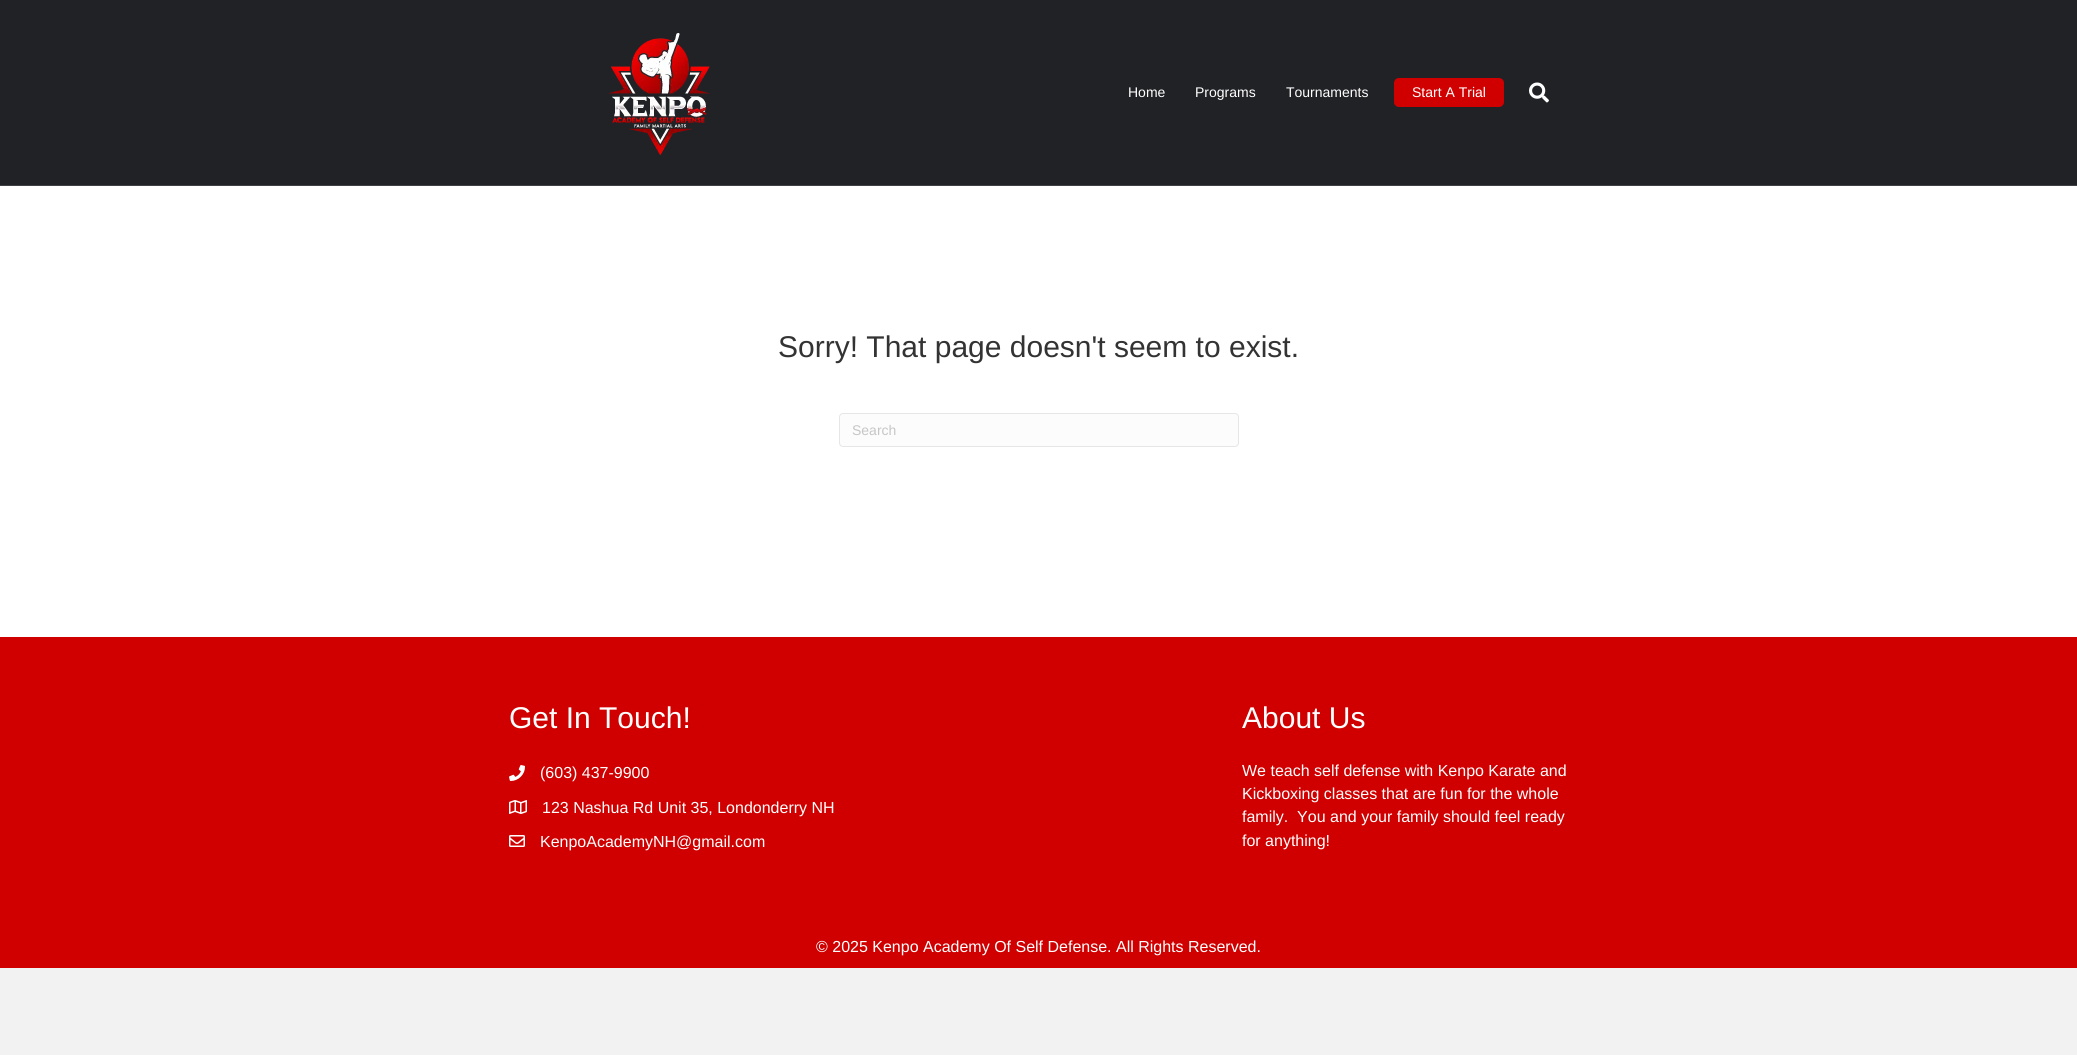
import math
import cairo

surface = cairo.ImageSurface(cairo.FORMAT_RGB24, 2077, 1055)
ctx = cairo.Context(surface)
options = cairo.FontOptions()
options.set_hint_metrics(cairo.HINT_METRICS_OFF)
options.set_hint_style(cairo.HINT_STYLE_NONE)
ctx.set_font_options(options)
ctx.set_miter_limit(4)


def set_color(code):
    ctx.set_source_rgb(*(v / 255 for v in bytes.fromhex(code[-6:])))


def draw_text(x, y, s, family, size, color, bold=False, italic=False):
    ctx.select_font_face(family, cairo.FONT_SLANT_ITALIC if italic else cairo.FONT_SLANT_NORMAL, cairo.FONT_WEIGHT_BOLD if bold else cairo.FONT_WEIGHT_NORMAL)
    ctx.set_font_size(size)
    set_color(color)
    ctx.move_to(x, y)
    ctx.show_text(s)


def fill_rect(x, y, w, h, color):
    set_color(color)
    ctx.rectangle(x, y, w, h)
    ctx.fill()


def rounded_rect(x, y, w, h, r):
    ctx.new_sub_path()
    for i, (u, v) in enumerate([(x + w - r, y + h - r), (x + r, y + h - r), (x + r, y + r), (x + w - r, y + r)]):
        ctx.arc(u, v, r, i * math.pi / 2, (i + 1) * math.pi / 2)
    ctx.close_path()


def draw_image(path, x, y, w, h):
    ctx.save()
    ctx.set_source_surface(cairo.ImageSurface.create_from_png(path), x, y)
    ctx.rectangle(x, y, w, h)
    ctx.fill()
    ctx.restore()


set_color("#f2f2f2")
ctx.paint()
fill_rect(0, 0, 2077, 185, "#212226")
fill_rect(0, 185, 2077, 1, "#3e3f42")
draw_image("assets/img1.png", 608, 33, 102, 122)
draw_text(1128, 97, "Home", "Liberation Sans", 14, "#ffffff")
draw_text(1195, 97, "Programs", "Liberation Sans", 14, "#ffffff")
draw_text(1286, 97, "Tournaments", "Liberation Sans", 14, "#ffffff")
set_color("#d00000")
rounded_rect(1394, 78, 110, 29, 5)
ctx.fill()
draw_text(1412, 97, "Start A Trial", "Liberation Sans", 14, "#ffffff")
draw_image("assets/img2.png", 1529, 82, 20, 21)
fill_rect(0, 186, 2077, 451, "#ffffff")
draw_text(778, 357, "Sorry! That page doesn't seem to exist.", "Liberation Sans", 30, "#333333")
set_color("#fcfcfc")
rounded_rect(839.5, 413.5, 399, 33, 3.5)
ctx.fill_preserve()
set_color("#e6e6e6")
ctx.set_line_width(1)
ctx.stroke()
draw_text(852, 435, "Search", "Liberation Sans", 14, "#c6c6c6")
fill_rect(0, 637, 2077, 331, "#d00000")
draw_text(509, 728, "Get In Touch!", "Liberation Sans", 30, "#ffffff")
draw_image("assets/img3.png", 509, 765, 16, 16)
draw_text(540, 778, "(603) 437-9900", "Liberation Sans", 16, "#ffffff")
draw_image("assets/img4.png", 509, 800, 18, 14)
draw_text(542, 813, "123 Nashua Rd Unit 35, Londonderry NH", "Liberation Sans", 16, "#ffffff")
draw_image("assets/img5.png", 509, 835, 16, 12)
draw_text(540, 847, "KenpoAcademyNH@gmail.com", "Liberation Sans", 16, "#ffffff")
draw_text(1242, 728, "About Us", "Liberation Sans", 30, "#ffffff")
draw_text(1242, 776, "We teach self defense with Kenpo Karate and", "Liberation Sans", 16, "#ffffff")
draw_text(1242, 799, "Kickboxing classes that are fun for the whole", "Liberation Sans", 16, "#ffffff")
draw_text(1242, 822, "family.  You and your family should feel ready", "Liberation Sans", 16, "#ffffff")
draw_text(1242, 846, "for anything!", "Liberation Sans", 16, "#ffffff")
draw_text(816, 952, "© 2025 Kenpo Academy Of Self Defense. All Rights Reserved.", "Liberation Sans", 16, "#ffffff")
surface.write_to_png("output.png")
